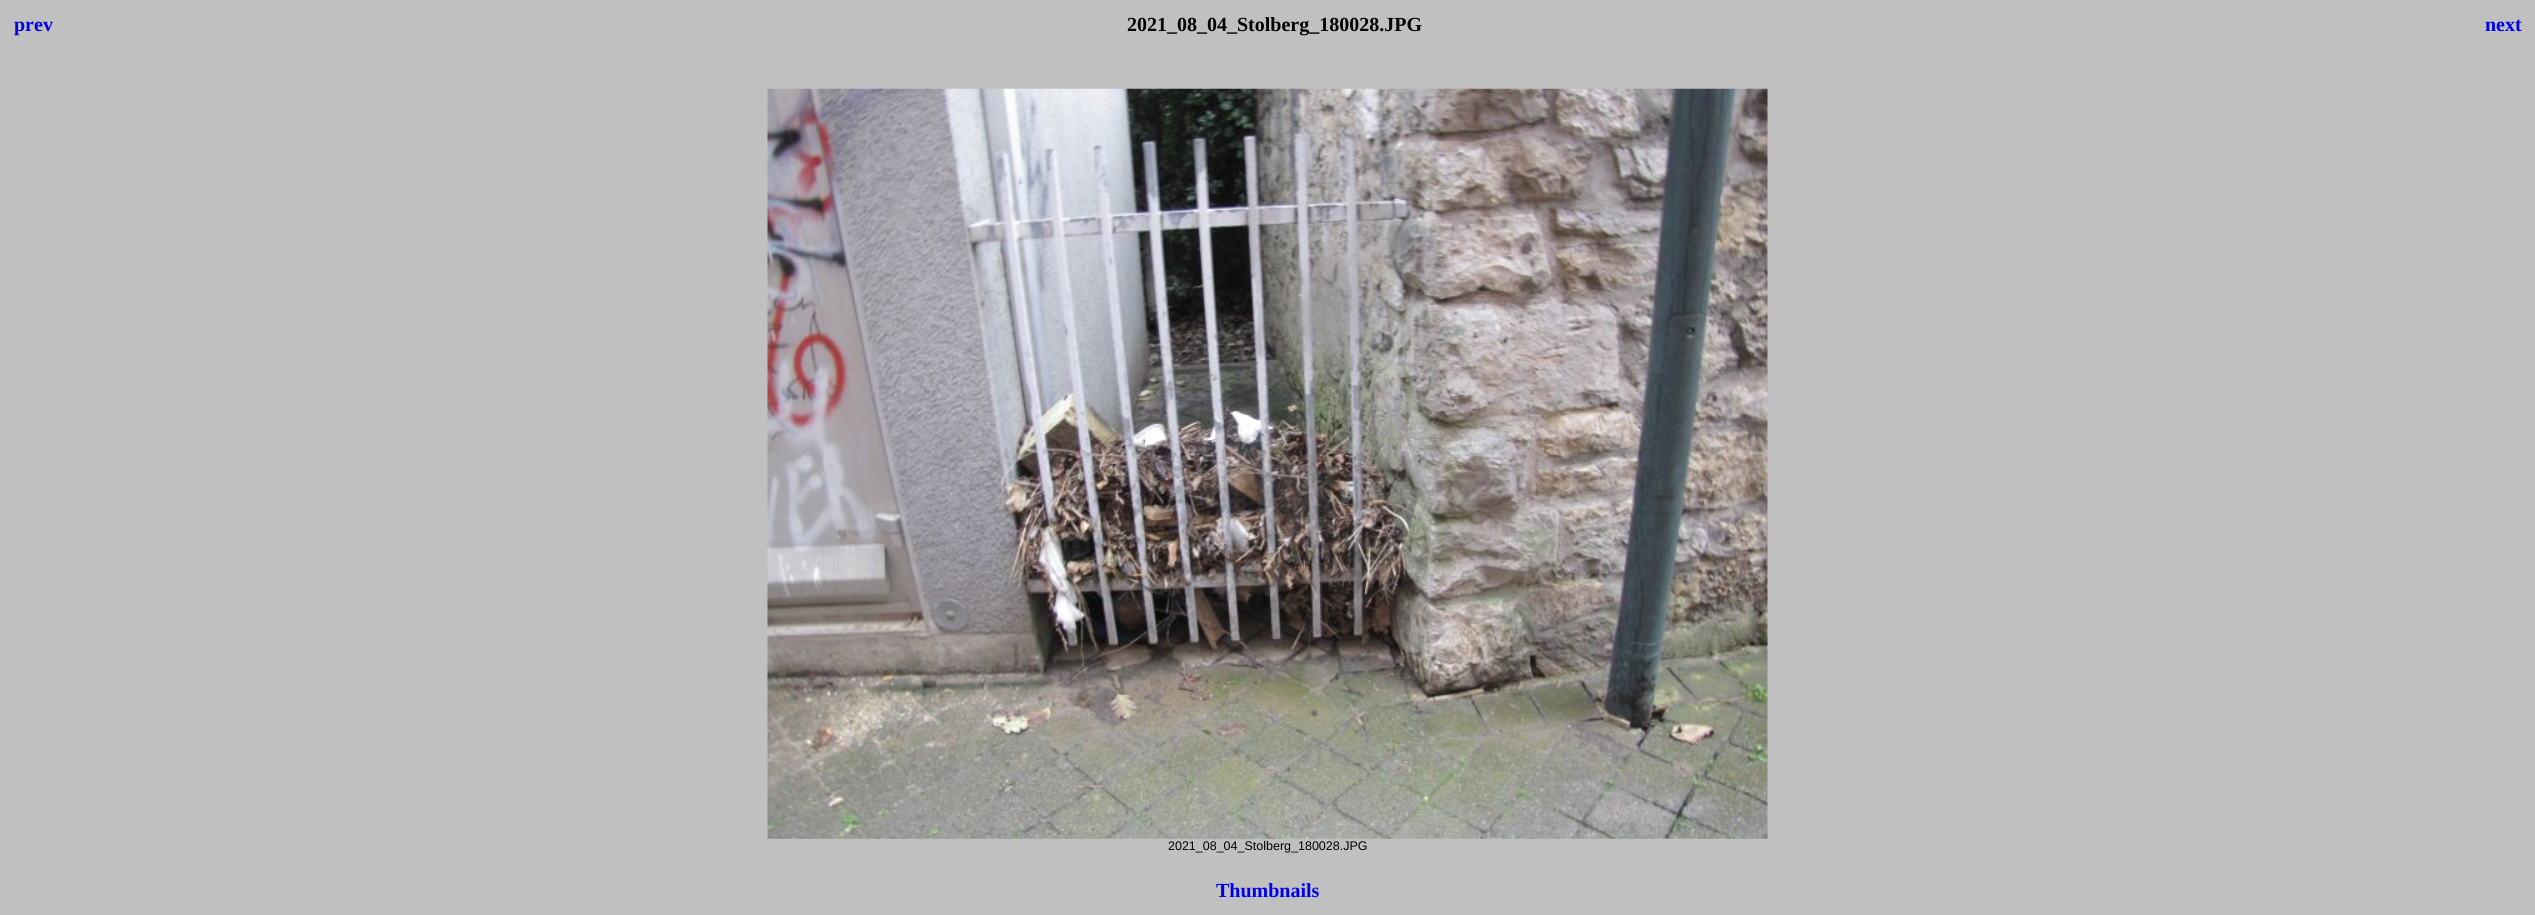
import math
import cairo

surface = cairo.ImageSurface(cairo.FORMAT_RGB24, 2535, 915)
ctx = cairo.Context(surface)
options = cairo.FontOptions()
options.set_hint_metrics(cairo.HINT_METRICS_OFF)
options.set_hint_style(cairo.HINT_STYLE_NONE)
ctx.set_font_options(options)
ctx.set_miter_limit(4)


def set_color(code):
    ctx.set_source_rgb(*(v / 255 for v in bytes.fromhex(code[-6:])))


def draw_text(x, y, s, family, size, color, bold=False, italic=False):
    ctx.select_font_face(family, cairo.FONT_SLANT_ITALIC if italic else cairo.FONT_SLANT_NORMAL, cairo.FONT_WEIGHT_BOLD if bold else cairo.FONT_WEIGHT_NORMAL)
    ctx.set_font_size(size)
    set_color(color)
    ctx.move_to(x, y)
    ctx.show_text(s)


def draw_image(path, x, y, w, h):
    ctx.save()
    ctx.set_source_surface(cairo.ImageSurface.create_from_png(path), x, y)
    ctx.rectangle(x, y, w, h)
    ctx.fill()
    ctx.restore()


set_color("#c0c0c0")
ctx.paint()
draw_text(14, 31, "prev", "Liberation Serif", 20, "#0000ee", bold=True)
draw_text(1127, 31, "2021_08_04_Stolberg_180028.JPG", "Liberation Serif", 20, "#000000", bold=True)
draw_text(2485, 31, "next", "Liberation Serif", 20, "#0000ee", bold=True)
draw_image("assets/img1.png", 767, 88, 1001, 751)
draw_text(1168, 850, "2021_08_04_Stolberg_180028.JPG", "Liberation Sans", 12.5, "#000000")
draw_text(1216, 897, "Thumbnails", "Liberation Serif", 20, "#0000ee", bold=True)
surface.write_to_png("output.png")
